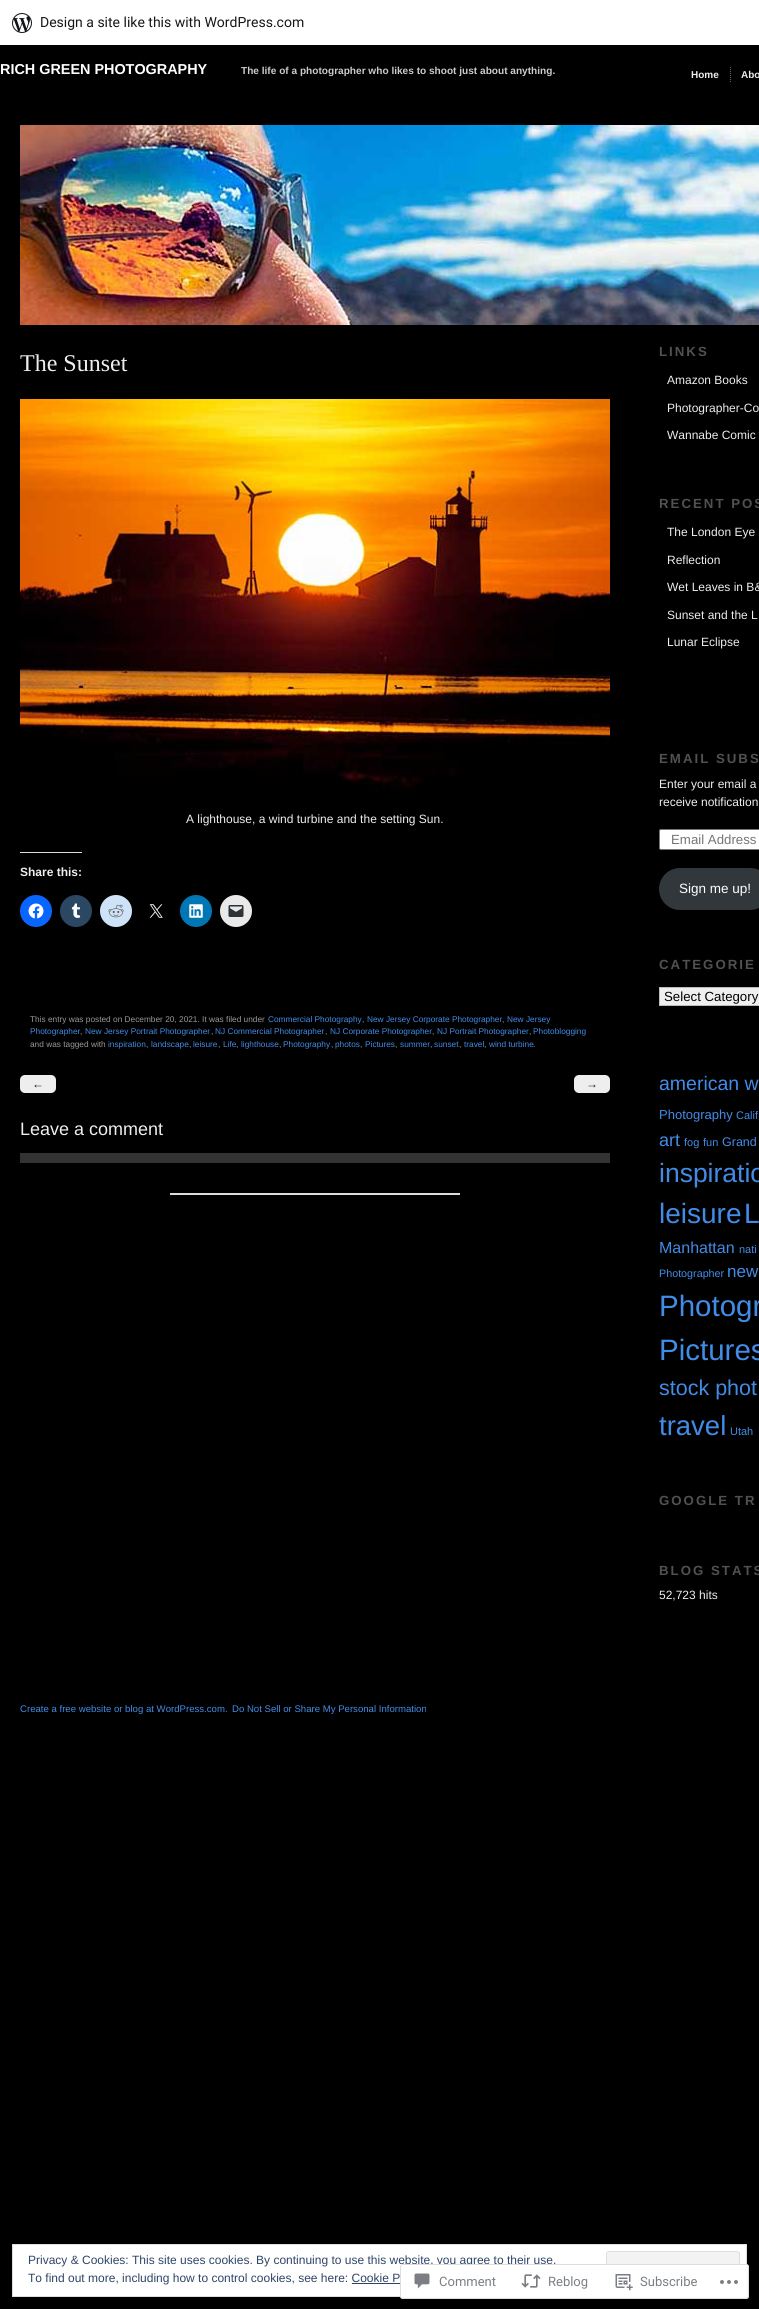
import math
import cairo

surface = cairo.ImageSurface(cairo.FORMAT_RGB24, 759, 2309)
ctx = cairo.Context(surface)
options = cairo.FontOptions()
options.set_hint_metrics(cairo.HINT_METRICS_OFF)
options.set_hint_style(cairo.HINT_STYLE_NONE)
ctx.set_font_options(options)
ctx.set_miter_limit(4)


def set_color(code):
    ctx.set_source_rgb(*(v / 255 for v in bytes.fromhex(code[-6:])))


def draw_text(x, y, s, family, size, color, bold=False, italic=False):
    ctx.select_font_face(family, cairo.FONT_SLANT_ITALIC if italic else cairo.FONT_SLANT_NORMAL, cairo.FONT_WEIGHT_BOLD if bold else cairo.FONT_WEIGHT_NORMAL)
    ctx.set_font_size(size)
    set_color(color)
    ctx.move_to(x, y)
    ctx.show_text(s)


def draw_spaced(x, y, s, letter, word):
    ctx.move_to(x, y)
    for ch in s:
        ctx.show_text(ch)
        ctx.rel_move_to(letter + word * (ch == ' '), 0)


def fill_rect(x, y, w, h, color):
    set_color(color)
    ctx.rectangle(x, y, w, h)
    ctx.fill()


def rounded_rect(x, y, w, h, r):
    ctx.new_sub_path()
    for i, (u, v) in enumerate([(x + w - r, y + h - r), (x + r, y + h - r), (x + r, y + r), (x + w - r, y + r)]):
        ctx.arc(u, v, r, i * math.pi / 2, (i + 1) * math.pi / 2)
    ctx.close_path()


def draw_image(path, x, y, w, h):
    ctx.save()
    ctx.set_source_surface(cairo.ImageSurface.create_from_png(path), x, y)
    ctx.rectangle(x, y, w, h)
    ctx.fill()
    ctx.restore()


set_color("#000000")
ctx.paint()
fill_rect(0, 0, 759, 45, "#ffffff")
draw_image("assets/img1.png", 12, 13, 20, 20)
draw_text(40, 27, "Design a site like this with WordPress.com", "Roboto", 14, "#171717")
draw_image("assets/img2.png", 20, 125, 739, 200)
draw_text(20, 371, "The Sunset", "Liberation Serif", 24, "#eeeeee")
draw_image("assets/img3.png", 20, 399, 590, 393)
draw_text(186, 823, "A lighthouse, a wind turbine and the setting Sun.", "Liberation Sans", 12, "#eeeeee")
fill_rect(20, 852, 62, 1, "#dcdcde")
draw_text(20, 876, "Share this:", "Liberation Sans", 12, "#eeeeee", bold=True)
set_color("#0866ff")
ctx.new_path()
ctx.arc(36, 911, 16, 0, 2 * math.pi)
ctx.fill()
draw_image("assets/img4.png", 28, 903, 16, 16)
set_color("#2c4762")
ctx.arc(76, 911, 16, 0, 2 * math.pi)
ctx.fill()
draw_image("assets/img5.png", 71, 903, 10, 15)
set_color("#cee3f8")
ctx.arc(116, 911, 16, 0, 2 * math.pi)
ctx.fill()
draw_image("assets/img6.png", 108, 904, 16, 14)
draw_image("assets/img7.png", 149, 904, 14, 14)
set_color("#0077b5")
ctx.arc(196, 911, 16, 0, 2 * math.pi)
ctx.fill()
draw_image("assets/img8.png", 189, 904, 14, 14)
set_color("#e9e9e9")
ctx.arc(236, 911, 16, 0, 2 * math.pi)
ctx.fill()
draw_image("assets/img9.png", 228, 905, 16, 12)
draw_text(30, 1022, "This entry was posted on December 20, 2021. It was filed under", "Liberation Sans", 8.3, "#999999")
draw_text(268, 1022, "Commercial Photography", "Liberation Sans", 8.3, "#428ce7")
draw_text(362, 1022, ",", "Liberation Sans", 8.3, "#999999")
draw_text(367, 1022, "New Jersey Corporate Photographer", "Liberation Sans", 8.3, "#428ce7")
draw_text(507, 1022, "New Jersey", "Liberation Sans", 8.3, "#428ce7")
draw_text(502, 1022, ",", "Liberation Sans", 8.3, "#999999")
draw_text(30, 1034, "Photographer", "Liberation Sans", 8.3, "#428ce7")
draw_text(80, 1034, ",", "Liberation Sans", 8.3, "#999999")
draw_text(85, 1034, "New Jersey Portrait Photographer", "Liberation Sans", 8.3, "#428ce7")
draw_text(211, 1034, ",", "Liberation Sans", 8.3, "#999999")
draw_text(215, 1034, "NJ Commercial Photographer", "Liberation Sans", 8.3, "#428ce7")
draw_text(325, 1034, ",", "Liberation Sans", 8.3, "#999999")
draw_text(330, 1034, "NJ Corporate Photographer", "Liberation Sans", 8.3, "#428ce7")
draw_text(432, 1034, ",", "Liberation Sans", 8.3, "#999999")
draw_text(437, 1034, "NJ Portrait Photographer", "Liberation Sans", 8.3, "#428ce7")
draw_text(529, 1034, ",", "Liberation Sans", 8.3, "#999999")
draw_text(533, 1034, "Photoblogging", "Liberation Sans", 8.3, "#428ce7")
draw_text(30, 1047, "and was tagged with", "Liberation Sans", 8.3, "#999999")
draw_text(108, 1047, "inspiration", "Liberation Sans", 8.3, "#428ce7")
draw_text(146, 1047, ",", "Liberation Sans", 8.3, "#999999")
draw_text(151, 1047, "landscape", "Liberation Sans", 8.3, "#428ce7")
draw_text(189, 1047, ",", "Liberation Sans", 8.3, "#999999")
draw_text(193, 1047, "leisure", "Liberation Sans", 8.3, "#428ce7")
draw_text(218, 1047, ",", "Liberation Sans", 8.3, "#999999")
draw_text(223, 1047, "Life", "Liberation Sans", 8.3, "#428ce7")
draw_text(236, 1047, ",", "Liberation Sans", 8.3, "#999999")
draw_text(241, 1047, "lighthouse", "Liberation Sans", 8.3, "#428ce7")
draw_text(279, 1047, ",", "Liberation Sans", 8.3, "#999999")
draw_text(283, 1047, "Photography", "Liberation Sans", 8.3, "#428ce7")
draw_text(331, 1047, ",", "Liberation Sans", 8.3, "#999999")
draw_text(335, 1047, "photos", "Liberation Sans", 8.3, "#428ce7")
draw_text(360, 1047, ",", "Liberation Sans", 8.3, "#999999")
draw_text(365, 1047, "Pictures", "Liberation Sans", 8.3, "#428ce7")
draw_text(395, 1047, ",", "Liberation Sans", 8.3, "#999999")
draw_text(400, 1047, "summer", "Liberation Sans", 8.3, "#428ce7")
draw_text(430, 1047, ",", "Liberation Sans", 8.3, "#999999")
draw_text(434, 1047, "sunset", "Liberation Sans", 8.3, "#428ce7")
draw_text(459, 1047, ",", "Liberation Sans", 8.3, "#999999")
draw_text(464, 1047, "travel", "Liberation Sans", 8.3, "#428ce7")
draw_text(484, 1047, ",", "Liberation Sans", 8.3, "#999999")
draw_text(489, 1047, "wind turbine", "Liberation Sans", 8.3, "#428ce7")
draw_text(533, 1047, ".", "Liberation Sans", 8.3, "#999999")
set_color("#eeeeee")
rounded_rect(20, 1075, 36, 18, 5)
ctx.fill()
draw_text(32, 1088, "←", "Liberation Sans", 12, "#222222")
set_color("#eeeeee")
rounded_rect(574, 1075, 36, 18, 5)
ctx.fill()
draw_text(586, 1088, "→", "Liberation Sans", 12, "#222222")
draw_text(20, 1135, "Leave a comment", "Liberation Sans", 18, "#eeeeee")
fill_rect(20, 1153, 590, 10, "#333333")
fill_rect(170, 1193, 290, 2, "#dcdcde")
ctx.select_font_face("Liberation Sans", cairo.FONT_SLANT_NORMAL, cairo.FONT_WEIGHT_BOLD)
ctx.set_font_size(13.25)
set_color("#515151")
draw_spaced(659, 356, "LINKS", 2, 0)
draw_text(667, 384, "Amazon Books", "Liberation Sans", 12, "#eeeeee")
draw_text(667, 412, "Photographer-Co", "Liberation Sans", 12, "#eeeeee")
draw_text(667, 439, "Wannabe Comic", "Liberation Sans", 12, "#eeeeee")
ctx.select_font_face("Liberation Sans", cairo.FONT_SLANT_NORMAL, cairo.FONT_WEIGHT_BOLD)
ctx.set_font_size(13.25)
set_color("#515151")
draw_spaced(659, 508, "RECENT POS", 2, 0)
draw_text(667, 536, "The London Eye", "Liberation Sans", 12, "#eeeeee")
draw_text(667, 564, "Reflection", "Liberation Sans", 12, "#eeeeee")
draw_text(667, 591, "Wet Leaves in B&", "Liberation Sans", 12, "#eeeeee")
draw_text(667, 619, "Sunset and the L", "Liberation Sans", 12, "#eeeeee")
draw_text(667, 646, "Lunar Eclipse", "Liberation Sans", 12, "#eeeeee")
ctx.select_font_face("Liberation Sans", cairo.FONT_SLANT_NORMAL, cairo.FONT_WEIGHT_BOLD)
ctx.set_font_size(13.25)
set_color("#515151")
draw_spaced(659, 763, "EMAIL SUBS", 2, 0)
draw_text(659, 788, "Enter your email a", "Liberation Sans", 12, "#eeeeee")
draw_text(659, 806, "receive notification", "Liberation Sans", 12, "#eeeeee")
set_color("#ffffff")
rounded_rect(659.5, 829.5, 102, 20, 1.5)
ctx.fill_preserve()
set_color("#767676")
ctx.set_line_width(1)
ctx.stroke()
draw_text(671, 844, "Email Address", "Liberation Sans", 13.25, "#757575")
set_color("#32373c")
rounded_rect(659, 868, 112, 42, 21)
ctx.fill()
draw_text(679, 893, "Sign me up!", "Liberation Sans", 13.5, "#ffffff")
ctx.select_font_face("Liberation Sans", cairo.FONT_SLANT_NORMAL, cairo.FONT_WEIGHT_BOLD)
ctx.set_font_size(13.25)
set_color("#515151")
draw_spaced(659, 969, "CATEGORIE", 2, 0)
set_color("#efefef")
ctx.rectangle(659.5, 987.5, 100, 18)
ctx.fill_preserve()
set_color("#bbbbbb")
ctx.stroke()
draw_text(664, 1001, "Select Category", "Liberation Sans", 13.25, "#000000")
draw_text(659, 1090, "american w", "Liberation Sans", 19.5, "#428ce7")
draw_text(659, 1119, "Photography", "Liberation Sans", 13, "#428ce7")
draw_text(736, 1119, "Calif", "Liberation Sans", 11, "#428ce7")
draw_text(659, 1146, "art", "Liberation Sans", 18, "#428ce7")
draw_text(684, 1146, "fog", "Liberation Sans", 11, "#428ce7")
draw_text(703, 1146, "fun", "Liberation Sans", 11, "#428ce7")
draw_text(722, 1146, "Grand", "Liberation Sans", 12.5, "#428ce7")
draw_text(659, 1182, "inspiratio", "Liberation Sans", 26.5, "#428ce7")
draw_text(659, 1223, "leisure", "Liberation Sans", 28, "#428ce7")
draw_text(744, 1223, "L", "Liberation Sans", 28, "#428ce7")
draw_text(659, 1253, "Manhattan", "Liberation Sans", 16, "#428ce7")
draw_text(739, 1253, "nati", "Liberation Sans", 11, "#428ce7")
draw_text(659, 1277, "Photographer", "Liberation Sans", 10.75, "#428ce7")
draw_text(727, 1277, "new", "Liberation Sans", 17, "#428ce7")
draw_text(659, 1316, "Photogr", "Liberation Sans", 29.5, "#428ce7")
draw_text(659, 1360, "Pictures", "Liberation Sans", 29.5, "#428ce7")
draw_text(659, 1395, "stock phot", "Liberation Sans", 21.5, "#428ce7")
draw_text(659, 1435, "travel", "Liberation Sans", 27.5, "#428ce7")
draw_text(730, 1435, "Utah", "Liberation Sans", 11, "#428ce7")
ctx.select_font_face("Liberation Sans", cairo.FONT_SLANT_NORMAL, cairo.FONT_WEIGHT_BOLD)
ctx.set_font_size(13.25)
set_color("#515151")
draw_spaced(659, 1505, "GOOGLE TR", 2, 0)
draw_spaced(659, 1575, "BLOG STATS", 2, 0)
draw_text(659, 1599, "52,723 hits", "Liberation Sans", 12, "#eeeeee")
draw_text(20, 1712, "Create a free website or blog at WordPress.com.", "Liberation Sans", 9.6, "#428ce7")
draw_text(232, 1712, "Do Not Sell or Share My Personal Information", "Liberation Sans", 9.6, "#428ce7")
set_color("#ffffff")
ctx.rectangle(12.5, 2244.5, 734, 52)
ctx.fill_preserve()
set_color("#dedede")
ctx.stroke()
draw_text(28, 2264, "Privacy & Cookies: This site uses cookies. By continuing to use this website, you agree to their use.", "Liberation Sans", 12, "#2e4467")
set_color("#f3f3f3")
rounded_rect(606.5, 2251.5, 133, 38, 2.5)
ctx.fill_preserve()
set_color("#dedede")
ctx.stroke()
fill_rect(352, 2283, 72, 1, "#2e4467")
ctx.set_source_rgba(1, 1, 1, 0.98)
rounded_rect(400, 2264, 349, 35, 3)
ctx.fill()
rounded_rect(400.5, 2264.5, 348, 34, 2.5)
ctx.set_source_rgba(0.863, 0.863, 0.871, 0.98)
ctx.stroke()
draw_image("assets/img10.png", 414, 2273, 16, 16)
draw_text(439, 2286, "Comment", "Roboto", 13, "#7b7f85")
draw_image("assets/img11.png", 521, 2274, 20, 14)
draw_text(548, 2286, "Reblog", "Roboto", 13, "#7b7f85")
draw_image("assets/img12.png", 615, 2274, 18, 17)
draw_text(640, 2286, "Subscribe", "Roboto", 13, "#7b7f85")
draw_image("assets/img13.png", 720, 2280, 18, 4)
draw_text(0, 74, "RICH GREEN PHOTOGRAPHY", "Liberation Sans", 14.4, "#ffffff", bold=True)
draw_text(241, 74, "The life of a photographer who likes to shoot just about anything.", "Liberation Sans", 10.1, "#cccccc", bold=True)
ctx.new_path()
ctx.move_to(730.5, 67)
ctx.line_to(730.5, 82)
set_color("#666666")
ctx.set_dash([1, 1])
ctx.stroke()
draw_text(691, 78, "Home", "Liberation Sans", 10, "#eeeeee", bold=True)
draw_text(741, 78, "Abo", "Liberation Sans", 10, "#eeeeee", bold=True)
draw_text(28, 2282, "To find out more, including how to control cookies, see here: Cookie P", "Liberation Sans", 12, "#2e4467")
surface.write_to_png("output.png")
